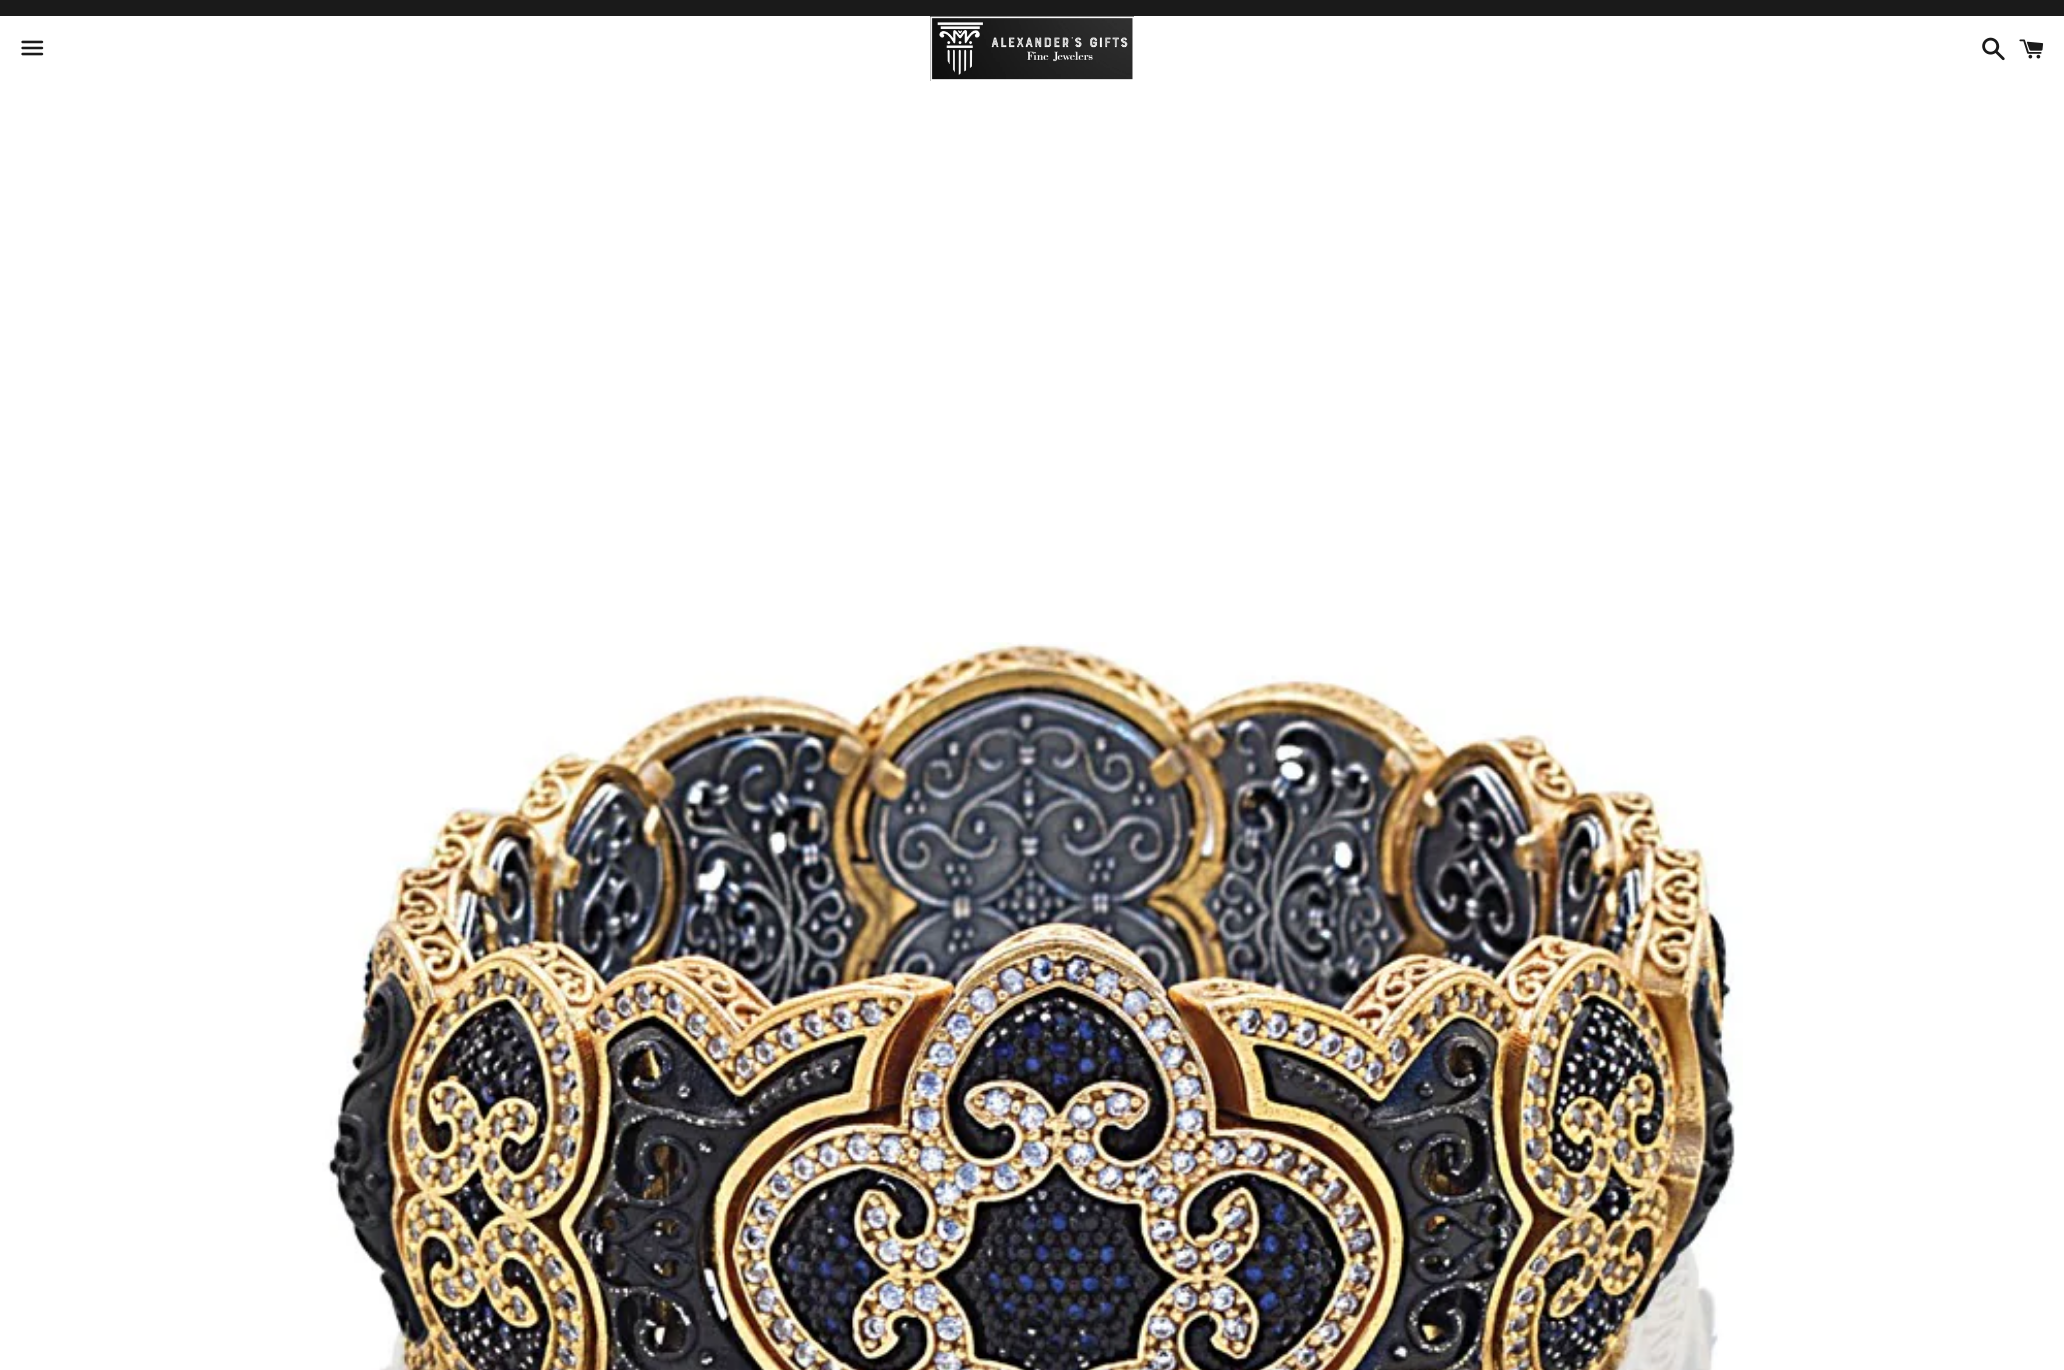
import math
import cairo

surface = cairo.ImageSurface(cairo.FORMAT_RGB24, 2064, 1370)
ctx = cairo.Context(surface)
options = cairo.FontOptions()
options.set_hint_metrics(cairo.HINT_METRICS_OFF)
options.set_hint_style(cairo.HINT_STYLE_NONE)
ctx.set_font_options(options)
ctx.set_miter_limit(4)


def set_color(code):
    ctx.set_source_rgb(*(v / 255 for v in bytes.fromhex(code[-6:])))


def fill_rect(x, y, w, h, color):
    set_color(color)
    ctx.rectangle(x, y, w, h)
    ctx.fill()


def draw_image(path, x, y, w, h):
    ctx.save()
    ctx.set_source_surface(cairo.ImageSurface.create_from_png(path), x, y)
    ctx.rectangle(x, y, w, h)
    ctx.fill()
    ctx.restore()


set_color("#ffffff")
ctx.paint()
fill_rect(0, 0, 2064, 16, "#1a1a1a")
draw_image("assets/img1.png", 21, 40, 23, 16)
draw_image("assets/img2.png", 930, 16, 204, 65)
draw_image("assets/img3.png", 1982, 37, 23, 24)
draw_image("assets/img4.png", 2019, 39, 25, 20)
draw_image("assets/img5.png", 322, 642, 1421, 728)
surface.write_to_png("output.png")
